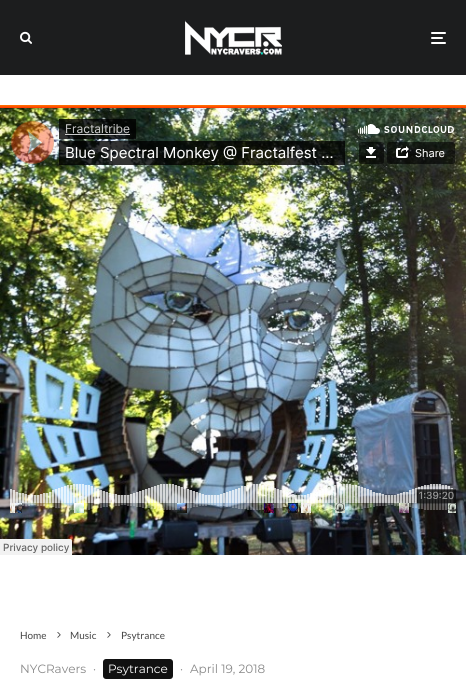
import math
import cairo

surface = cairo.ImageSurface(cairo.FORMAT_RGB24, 466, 696)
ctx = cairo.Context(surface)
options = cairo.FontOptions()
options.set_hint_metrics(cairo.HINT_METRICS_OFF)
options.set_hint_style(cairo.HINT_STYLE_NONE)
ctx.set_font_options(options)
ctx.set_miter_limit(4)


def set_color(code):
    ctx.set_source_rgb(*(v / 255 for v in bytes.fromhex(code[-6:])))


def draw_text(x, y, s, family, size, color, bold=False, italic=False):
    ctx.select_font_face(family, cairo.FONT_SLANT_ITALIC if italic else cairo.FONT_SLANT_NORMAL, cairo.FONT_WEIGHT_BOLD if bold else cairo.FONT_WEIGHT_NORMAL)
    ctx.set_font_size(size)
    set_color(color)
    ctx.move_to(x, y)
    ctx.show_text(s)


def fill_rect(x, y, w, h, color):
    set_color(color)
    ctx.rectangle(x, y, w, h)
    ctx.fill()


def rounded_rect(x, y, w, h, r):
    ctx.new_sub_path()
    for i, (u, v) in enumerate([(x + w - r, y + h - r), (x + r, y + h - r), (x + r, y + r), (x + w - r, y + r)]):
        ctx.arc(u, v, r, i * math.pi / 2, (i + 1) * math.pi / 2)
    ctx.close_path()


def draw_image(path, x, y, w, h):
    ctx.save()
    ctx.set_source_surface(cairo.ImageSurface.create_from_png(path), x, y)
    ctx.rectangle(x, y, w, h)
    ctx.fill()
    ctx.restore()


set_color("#ffffff")
ctx.paint()
fill_rect(0, 0, 466, 75, "#1c1d1e")
draw_image("assets/img1.png", 20, 31, 12, 13)
draw_image("assets/img2.png", 185, 20, 97, 35)
set_color("#ffffff")
rounded_rect(431, 37, 12, 2, 1)
ctx.fill()
rounded_rect(431, 32, 15, 2, 1)
ctx.fill()
rounded_rect(431, 42, 15, 2, 1)
ctx.fill()
draw_image("assets/img3.png", 0, 105, 466, 450)
draw_text(20, 639, "Home", "Lato", 10, "#444444")
draw_image("assets/img4.png", 57, 632, 4, 6)
draw_text(70, 639, "Music", "Lato", 10, "#444444")
draw_image("assets/img4.png", 107, 632, 4, 6)
draw_text(121, 639, "Psytrance", "Lato", 10, "#444444")
draw_text(20, 673, "NYCRavers", "Montserrat", 12, "#888888")
draw_text(93, 673, "·", "Montserrat", 12, "#888888")
set_color("#111111")
rounded_rect(103, 659, 70, 20, 3)
ctx.fill()
draw_text(108, 673, "Psytrance", "Montserrat", 12, "#ffffff")
draw_text(180, 673, "·", "Montserrat", 12, "#888888")
draw_text(190, 673, "April 19, 2018", "Montserrat", 12, "#888888")
surface.write_to_png("output.png")
